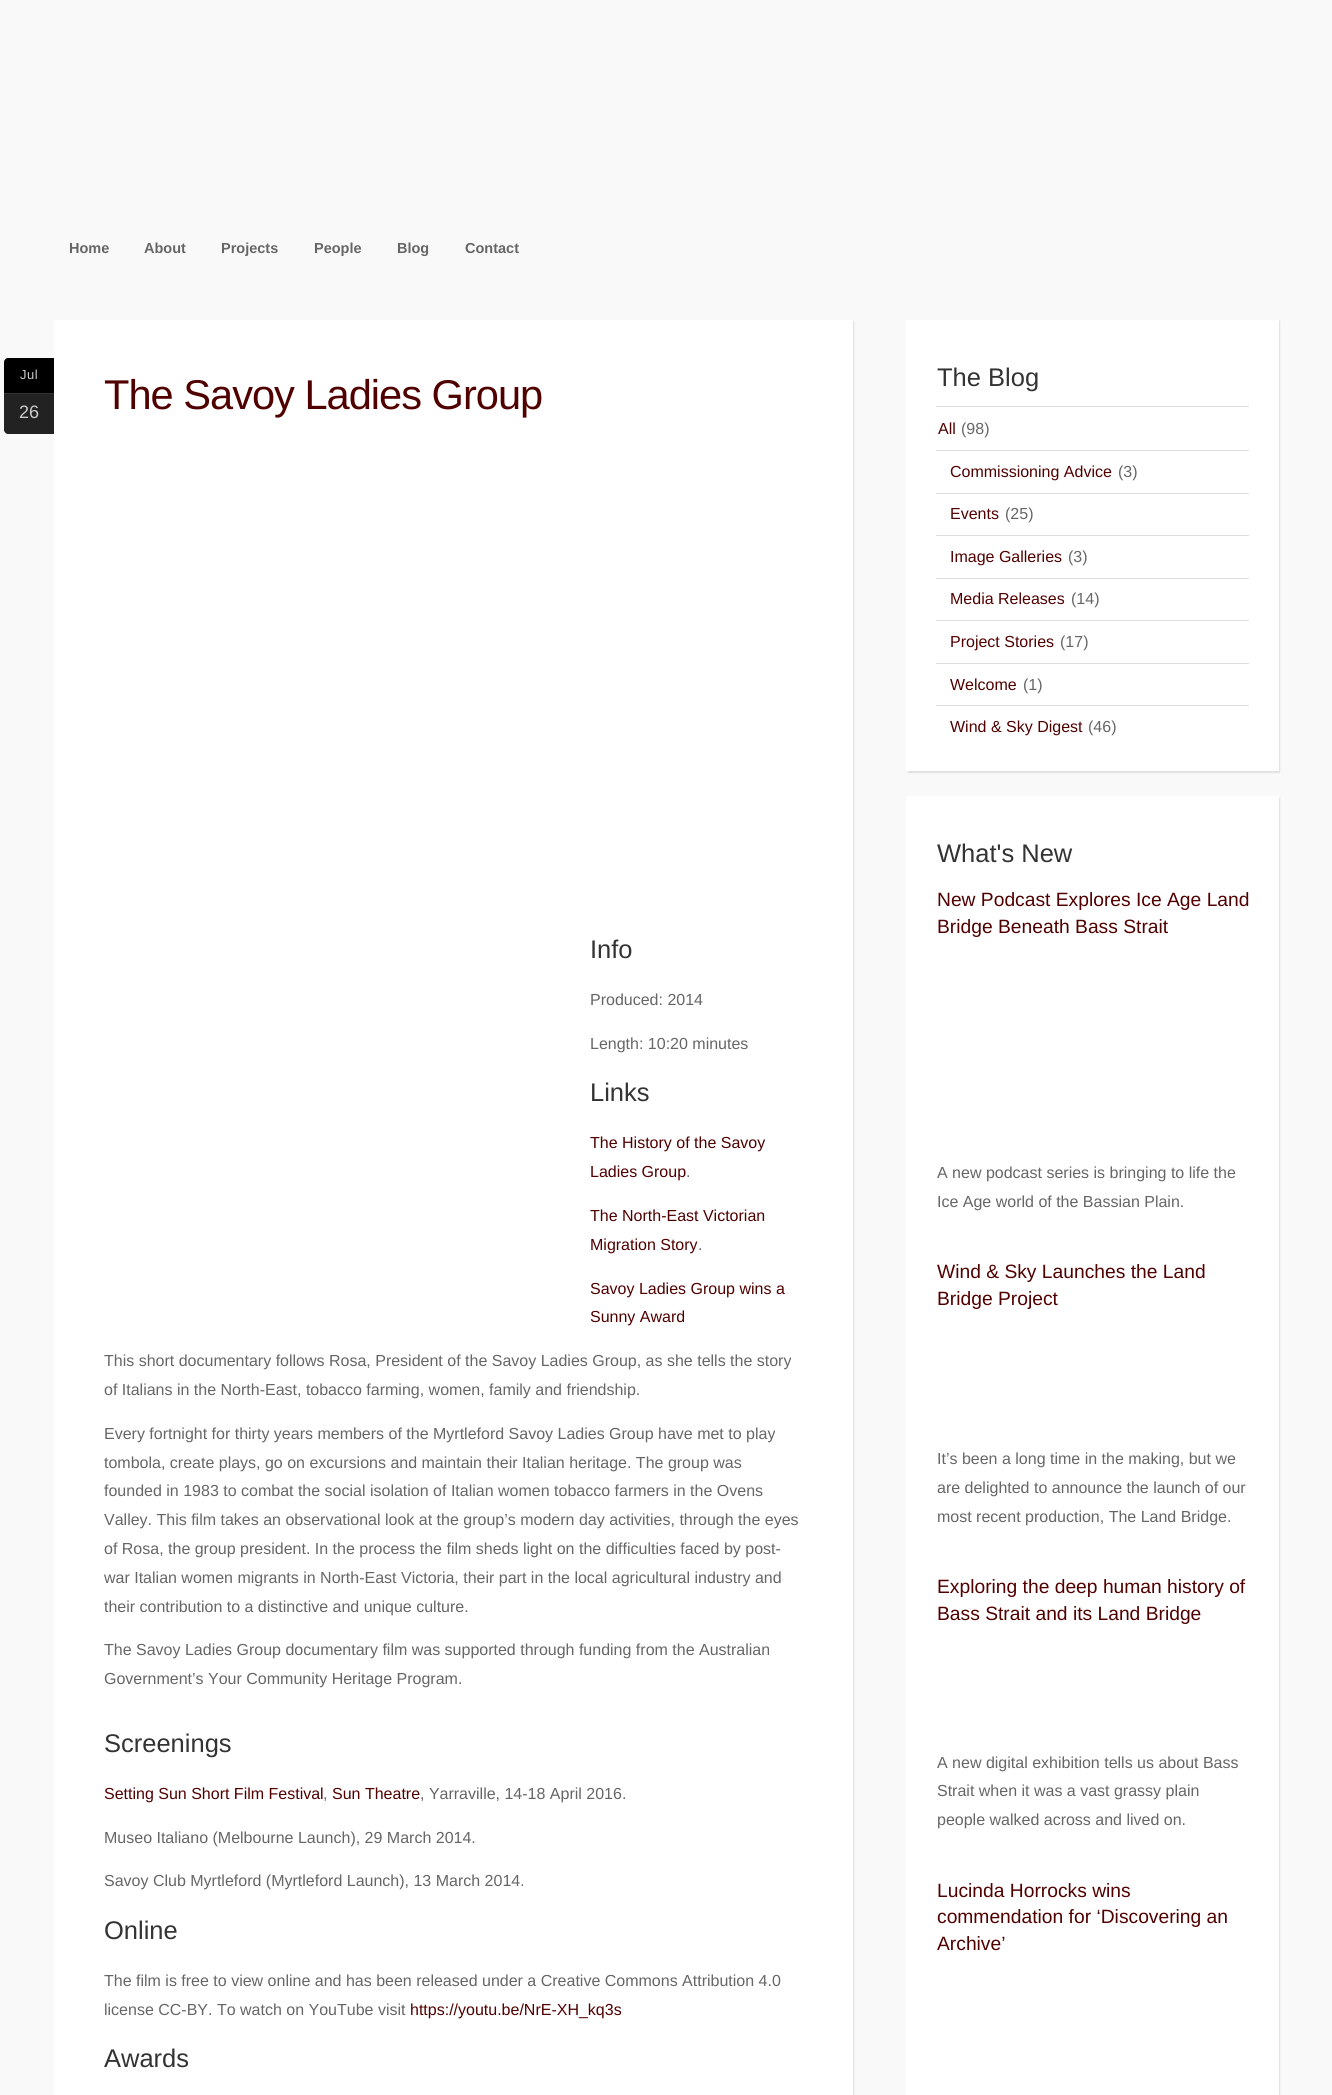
import math
import cairo

surface = cairo.ImageSurface(cairo.FORMAT_RGB24, 1332, 2095)
ctx = cairo.Context(surface)
options = cairo.FontOptions()
options.set_hint_metrics(cairo.HINT_METRICS_OFF)
options.set_hint_style(cairo.HINT_STYLE_NONE)
ctx.set_font_options(options)
ctx.set_miter_limit(4)


def set_color(code):
    ctx.set_source_rgb(*(v / 255 for v in bytes.fromhex(code[-6:])))


def draw_text(x, y, s, family, size, color, bold=False, italic=False):
    ctx.select_font_face(family, cairo.FONT_SLANT_ITALIC if italic else cairo.FONT_SLANT_NORMAL, cairo.FONT_WEIGHT_BOLD if bold else cairo.FONT_WEIGHT_NORMAL)
    ctx.set_font_size(size)
    set_color(color)
    ctx.move_to(x, y)
    ctx.show_text(s)


def draw_spaced(x, y, s, letter, word):
    ctx.move_to(x, y)
    for ch in s:
        ctx.show_text(ch)
        ctx.rel_move_to(letter + word * (ch == ' '), 0)


def fill_rect(x, y, w, h, color):
    set_color(color)
    ctx.rectangle(x, y, w, h)
    ctx.fill()


def rounded_rect(x, y, w, h, r):
    ctx.new_sub_path()
    for i, (u, v) in enumerate([(x + w - r, y + h - r), (x + r, y + h - r), (x + r, y + r), (x + w - r, y + r)]):
        ctx.arc(u, v, r, i * math.pi / 2, (i + 1) * math.pi / 2)
    ctx.close_path()


def draw_shadow(x, y, w, h, r, blur, alpha):
    ctx.push_group_with_content(cairo.CONTENT_ALPHA)
    ctx.set_operator(cairo.OPERATOR_SOURCE)
    for i in range(15, -16, -2):
        e = blur * i / 6
        if min(w, h) + 2 * e > 0:
            ctx.set_source_rgba(0, 0, 0, alpha * math.erfc((i - 1) / 8.5) / 2)
            rounded_rect(x - e, y - e, w + 2 * e, h + 2 * e, max(0, min(r + e + blur * .6, min(w, h) / 2 + e)))
            ctx.fill()
    ctx.mask(ctx.pop_group())


set_color("#f9f9f9")
ctx.paint()
draw_text(69, 253, "Home", "Liberation Sans", 14.5, "#666666", bold=True)
draw_text(144, 253, "About", "Liberation Sans", 14.5, "#666666", bold=True)
draw_text(221, 253, "Projects", "Liberation Sans", 14.5, "#666666", bold=True)
draw_text(314, 253, "People", "Liberation Sans", 14.5, "#666666", bold=True)
draw_text(397, 253, "Blog", "Liberation Sans", 14.5, "#666666", bold=True)
draw_text(465, 253, "Contact", "Liberation Sans", 14.5, "#666666", bold=True)
set_color("#000000")
draw_shadow(55, 321, 799, 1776, 0, 0.5, 0.1)
set_color("#000000")
ctx.new_path()
ctx.move_to(8, 358)
ctx.line_to(54, 358)
ctx.line_to(54, 394)
ctx.line_to(4, 394)
ctx.line_to(4, 362)
ctx.curve_to(4, 360, 6, 358, 8, 358)
ctx.close_path()
ctx.fill()
fill_rect(4, 393, 50, 1, "#333333")
ctx.select_font_face("Liberation Sans")
ctx.set_font_size(13)
set_color("#cccccc")
draw_spaced(20, 379, "Jul", 0.5, 0)
set_color("#222222")
ctx.new_path()
ctx.move_to(4, 394)
ctx.line_to(54, 394)
ctx.line_to(54, 434)
ctx.line_to(8, 434)
ctx.curve_to(6, 434, 4, 432, 4, 430)
ctx.close_path()
ctx.fill()
draw_text(19, 418, "26", "Liberation Sans", 18, "#cccccc")
fill_rect(54, 320, 799, 1775, "#ffffff")
ctx.set_font_size(41.6)
set_color("#510000")
draw_spaced(104, 409, "The Savoy Ladies Group", -1, 0)
draw_text(590, 958, "Info", "Liberation Sans", 25.5, "#333333")
draw_text(590, 1005, "Produced: 2014", "Liberation Sans", 16, "#666666")
draw_text(590, 1049, "Length: 10:20 minutes", "Liberation Sans", 16, "#666666")
draw_text(590, 1101, "Links", "Liberation Sans", 25.5, "#333333")
draw_text(590, 1148, "The History of the Savoy", "Liberation Sans", 16, "#510000")
draw_text(590, 1177, "Ladies Group", "Liberation Sans", 16, "#510000")
draw_text(686, 1177, ".", "Liberation Sans", 16, "#666666")
draw_text(590, 1221, "The North-East Victorian", "Liberation Sans", 16, "#510000")
draw_text(590, 1250, "Migration Story", "Liberation Sans", 16, "#510000")
draw_text(698, 1250, ".", "Liberation Sans", 16, "#666666")
draw_text(590, 1294, "Savoy Ladies Group wins a", "Liberation Sans", 16, "#510000")
draw_text(590, 1322, "Sunny Award", "Liberation Sans", 16, "#510000")
draw_text(104, 1366, "This short documentary follows Rosa, President of the Savoy Ladies Group, as she tells the story", "Liberation Sans", 16, "#666666")
draw_text(104, 1395, "of Italians in the North-East, tobacco farming, women, family and friendship.", "Liberation Sans", 16, "#666666")
draw_text(104, 1439, "Every fortnight for thirty years members of the Myrtleford Savoy Ladies Group have met to play", "Liberation Sans", 16, "#666666")
draw_text(104, 1468, "tombola, create plays, go on excursions and maintain their Italian heritage. The group was", "Liberation Sans", 16, "#666666")
draw_text(104, 1496, "founded in 1983 to combat the social isolation of Italian women tobacco farmers in the Ovens", "Liberation Sans", 16, "#666666")
draw_text(104, 1525, "Valley. This film takes an observational look at the group’s modern day activities, through the eyes", "Liberation Sans", 16, "#666666")
draw_text(104, 1554, "of Rosa, the group president. In the process the film sheds light on the difficulties faced by post-", "Liberation Sans", 16, "#666666")
draw_text(104, 1583, "war Italian women migrants in North-East Victoria, their part in the local agricultural industry and", "Liberation Sans", 16, "#666666")
draw_text(104, 1612, "their contribution to a distinctive and unique culture.", "Liberation Sans", 16, "#666666")
draw_text(104, 1655, "The Savoy Ladies Group documentary film was supported through funding from the Australian", "Liberation Sans", 16, "#666666")
draw_text(104, 1684, "Government’s Your Community Heritage Program.", "Liberation Sans", 16, "#666666")
draw_text(104, 1752, "Screenings", "Liberation Sans", 25.5, "#333333")
draw_text(104, 1799, "Setting Sun Short Film Festival", "Liberation Sans", 16, "#510000")
draw_text(323, 1799, ",", "Liberation Sans", 16, "#666666")
draw_text(332, 1799, "Sun Theatre", "Liberation Sans", 16, "#510000")
draw_text(420, 1799, ", Yarraville, 14-18 April 2016.", "Liberation Sans", 16, "#666666")
draw_text(104, 1843, "Museo Italiano (Melbourne Launch), 29 March 2014.", "Liberation Sans", 16, "#666666")
draw_text(104, 1886, "Savoy Club Myrtleford (Myrtleford Launch), 13 March 2014.", "Liberation Sans", 16, "#666666")
draw_text(104, 1939, "Online", "Liberation Sans", 25.5, "#333333")
draw_text(104, 1986, "The film is free to view online and has been released under a Creative Commons Attribution 4.0", "Liberation Sans", 16, "#666666")
draw_text(104, 2015, "license CC-BY. To watch on YouTube visit", "Liberation Sans", 16, "#666666")
draw_text(410, 2015, "https://youtu.be/NrE-XH_kq3s", "Liberation Sans", 16, "#510000")
draw_text(104, 2067, "Awards", "Liberation Sans", 25.5, "#333333")
set_color("#000000")
draw_shadow(908, 321, 372, 452, 0, 0.5, 0.1)
fill_rect(906, 320, 373, 451, "#ffffff")
draw_text(937, 386, "The Blog", "Liberation Sans", 25.5, "#333333")
fill_rect(936, 406, 313, 1, "#dddddd")
draw_text(938, 434, "All", "Liberation Sans", 16, "#510000")
draw_text(961, 434, "(98)", "Liberation Sans", 16, "#666666")
fill_rect(936, 450, 313, 1, "#dddddd")
draw_text(950, 477, "Commissioning Advice", "Liberation Sans", 16, "#510000")
draw_text(1118, 477, "(3)", "Liberation Sans", 16, "#666666")
fill_rect(936, 493, 313, 1, "#dddddd")
draw_text(950, 519, "Events", "Liberation Sans", 16, "#510000")
draw_text(1005, 519, "(25)", "Liberation Sans", 16, "#666666")
fill_rect(936, 535, 313, 1, "#dddddd")
draw_text(950, 562, "Image Galleries", "Liberation Sans", 16, "#510000")
draw_text(1068, 562, "(3)", "Liberation Sans", 16, "#666666")
fill_rect(936, 578, 313, 1, "#dddddd")
draw_text(950, 604, "Media Releases", "Liberation Sans", 16, "#510000")
draw_text(1071, 604, "(14)", "Liberation Sans", 16, "#666666")
fill_rect(936, 620, 313, 1, "#dddddd")
draw_text(950, 647, "Project Stories", "Liberation Sans", 16, "#510000")
draw_text(1060, 647, "(17)", "Liberation Sans", 16, "#666666")
fill_rect(936, 663, 313, 1, "#dddddd")
draw_text(950, 690, "Welcome", "Liberation Sans", 16, "#510000")
draw_text(1023, 690, "(1)", "Liberation Sans", 16, "#666666")
fill_rect(936, 705, 313, 1, "#dddddd")
draw_text(950, 732, "Wind & Sky Digest", "Liberation Sans", 16, "#510000")
draw_text(1088, 732, "(46)", "Liberation Sans", 16, "#666666")
set_color("#000000")
draw_shadow(908, 798, 372, 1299, 0, 0.5, 0.1)
fill_rect(906, 796, 373, 1299, "#ffffff")
draw_text(937, 862, "What's New", "Liberation Sans", 25.5, "#333333")
draw_text(937, 906, "New Podcast Explores Ice Age Land", "Liberation Sans", 19.25, "#510000")
draw_text(937, 933, "Bridge Beneath Bass Strait", "Liberation Sans", 19.25, "#510000")
draw_text(937, 1178, "A new podcast series is bringing to life the", "Liberation Sans", 16, "#666666")
draw_text(937, 1207, "Ice Age world of the Bassian Plain.", "Liberation Sans", 16, "#666666")
draw_text(937, 1278, "Wind & Sky Launches the Land", "Liberation Sans", 19.25, "#510000")
draw_text(937, 1305, "Bridge Project", "Liberation Sans", 19.25, "#510000")
draw_text(937, 1464, "It’s been a long time in the making, but we", "Liberation Sans", 16, "#666666")
draw_text(937, 1493, "are delighted to announce the launch of our", "Liberation Sans", 16, "#666666")
draw_text(937, 1522, "most recent production, The Land Bridge.", "Liberation Sans", 16, "#666666")
draw_text(937, 1593, "Exploring the deep human history of", "Liberation Sans", 19.25, "#510000")
draw_text(937, 1620, "Bass Strait and its Land Bridge", "Liberation Sans", 19.25, "#510000")
draw_text(937, 1768, "A new digital exhibition tells us about Bass", "Liberation Sans", 16, "#666666")
draw_text(937, 1796, "Strait when it was a vast grassy plain", "Liberation Sans", 16, "#666666")
draw_text(937, 1825, "people walked across and lived on.", "Liberation Sans", 16, "#666666")
draw_text(937, 1897, "Lucinda Horrocks wins", "Liberation Sans", 19.25, "#510000")
draw_text(937, 1923, "commendation for ‘Discovering an", "Liberation Sans", 19.25, "#510000")
draw_text(937, 1950, "Archive’", "Liberation Sans", 19.25, "#510000")
surface.write_to_png("output.png")
